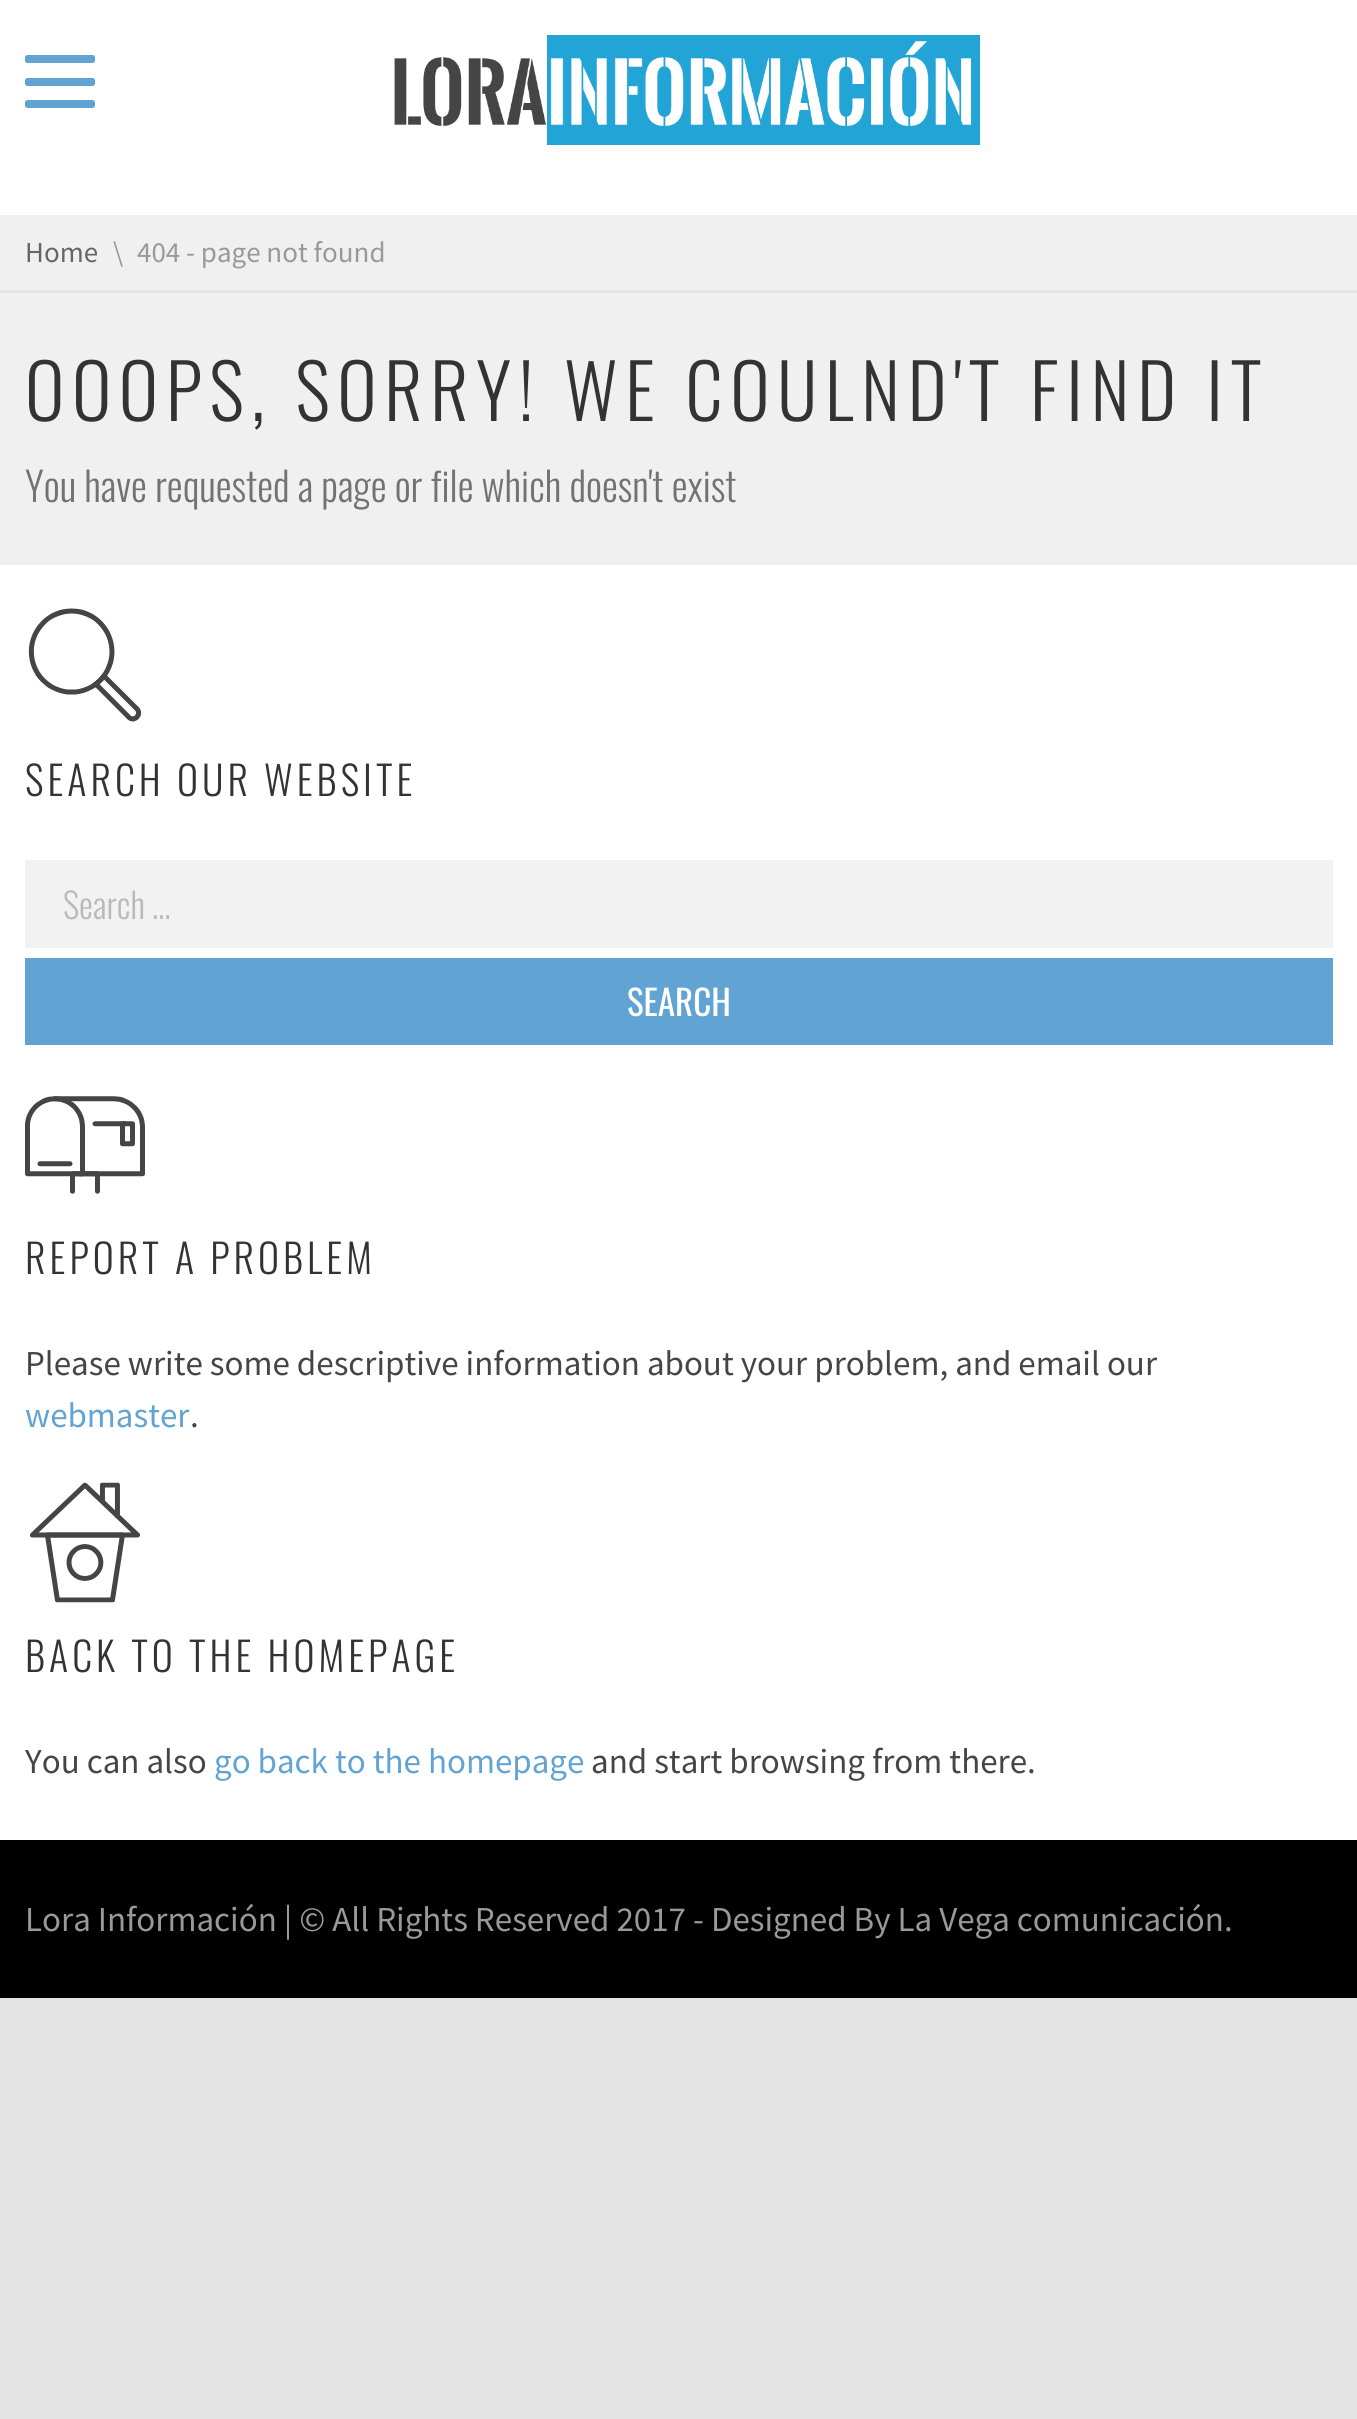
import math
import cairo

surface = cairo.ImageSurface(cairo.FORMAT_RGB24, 1357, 2419)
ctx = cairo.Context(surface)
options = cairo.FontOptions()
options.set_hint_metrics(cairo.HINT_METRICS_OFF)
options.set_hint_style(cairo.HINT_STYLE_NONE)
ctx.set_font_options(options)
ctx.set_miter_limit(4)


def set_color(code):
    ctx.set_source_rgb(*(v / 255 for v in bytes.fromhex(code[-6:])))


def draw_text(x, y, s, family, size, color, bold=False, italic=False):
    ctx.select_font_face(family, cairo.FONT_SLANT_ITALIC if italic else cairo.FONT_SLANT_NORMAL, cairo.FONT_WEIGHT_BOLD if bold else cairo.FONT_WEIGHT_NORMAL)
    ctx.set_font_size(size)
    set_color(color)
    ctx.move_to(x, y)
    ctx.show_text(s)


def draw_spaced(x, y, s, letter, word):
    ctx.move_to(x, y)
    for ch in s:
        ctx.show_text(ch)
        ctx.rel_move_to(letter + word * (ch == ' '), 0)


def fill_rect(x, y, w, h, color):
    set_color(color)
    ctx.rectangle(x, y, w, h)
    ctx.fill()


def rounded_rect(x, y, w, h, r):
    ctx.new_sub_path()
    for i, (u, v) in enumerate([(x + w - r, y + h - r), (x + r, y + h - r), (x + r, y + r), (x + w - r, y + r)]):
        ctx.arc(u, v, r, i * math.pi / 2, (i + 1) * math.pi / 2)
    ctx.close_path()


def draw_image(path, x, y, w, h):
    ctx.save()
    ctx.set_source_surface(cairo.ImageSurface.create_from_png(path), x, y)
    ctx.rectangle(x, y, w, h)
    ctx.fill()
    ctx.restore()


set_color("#e4e4e4")
ctx.paint()
fill_rect(0, 0, 1357, 215, "#ffffff")
set_color("#61a4d3")
rounded_rect(25, 78, 70, 8, 2.5)
ctx.fill()
rounded_rect(25, 55, 70, 8, 2.5)
ctx.fill()
rounded_rect(25, 100, 70, 8, 2.5)
ctx.fill()
draw_image("assets/img1.png", 394, 35, 586, 110)
fill_rect(0, 215, 1357, 75, "#f0f0f0")
draw_text(25, 262, "Home", "Source Sans Pro", 29, "#666666")
draw_text(113, 262, "\\", "Source Sans Pro", 29, "#999999")
draw_text(137, 262, "404 - page not found", "Source Sans Pro", 29, "#999999")
fill_rect(0, 293, 1357, 272, "#f0f0f0")
ctx.select_font_face("Oswald Light")
ctx.set_font_size(75)
set_color("#333333")
draw_spaced(25, 421, "OOOPS, SORRY! WE COULND'T FIND IT", 7.5, 0)
draw_text(25, 502, "You have requested a page or file which doesn't exist", "Oswald Light", 40, "#727272")
fill_rect(0, 565, 1357, 1275, "#ffffff")
draw_image("assets/img2.png", 28, 608, 114, 114)
set_color("#333333")
draw_spaced(25, 796, "SEARCH OUR WEBSITE", 4, 0)
fill_rect(25, 860, 1308, 88, "#f2f2f2")
draw_text(63, 919, "Search …", "Oswald Light", 35, "#b9b9b9")
fill_rect(25, 958, 1308, 87, "#61a4d3")
draw_text(627, 1016, "SEARCH", "Oswald", 35, "#ffffff")
draw_image("assets/img3.png", 25, 1096, 120, 98)
ctx.select_font_face("Oswald Light")
ctx.set_font_size(40)
set_color("#333333")
draw_spaced(25, 1274, "REPORT A PROBLEM", 4, 0)
draw_text(25, 1375, "Please write some descriptive information about your problem, and email our", "Source Sans Pro", 35, "#454545")
draw_text(25, 1427, "webmaster", "Source Sans Pro", 35, "#61a4d3")
draw_text(190, 1427, ".", "Source Sans Pro", 35, "#454545")
draw_image("assets/img4.png", 30, 1482, 110, 121)
ctx.select_font_face("Oswald Light")
ctx.set_font_size(40)
set_color("#333333")
draw_spaced(25, 1672, "BACK TO THE HOMEPAGE", 4, 0)
draw_text(25, 1773, "You can also", "Source Sans Pro", 35, "#454545")
draw_text(214, 1773, "go back to the homepage", "Source Sans Pro", 35, "#61a4d3")
draw_text(591, 1773, "and start browsing from there.", "Source Sans Pro", 35, "#454545")
fill_rect(0, 1840, 1357, 158, "#000000")
draw_text(25, 1931, "Lora Información | © All Rights Reserved 2017 - Designed By La Vega comunicación.", "Source Sans Pro", 35, "#999999")
surface.write_to_png("output.png")
